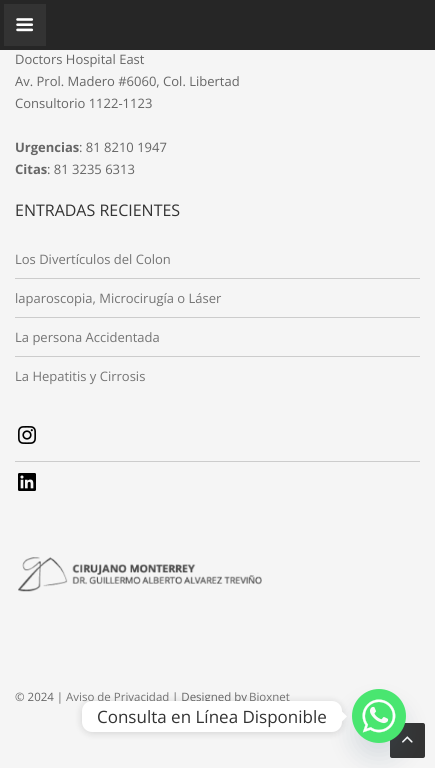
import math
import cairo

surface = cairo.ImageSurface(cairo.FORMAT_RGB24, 435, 768)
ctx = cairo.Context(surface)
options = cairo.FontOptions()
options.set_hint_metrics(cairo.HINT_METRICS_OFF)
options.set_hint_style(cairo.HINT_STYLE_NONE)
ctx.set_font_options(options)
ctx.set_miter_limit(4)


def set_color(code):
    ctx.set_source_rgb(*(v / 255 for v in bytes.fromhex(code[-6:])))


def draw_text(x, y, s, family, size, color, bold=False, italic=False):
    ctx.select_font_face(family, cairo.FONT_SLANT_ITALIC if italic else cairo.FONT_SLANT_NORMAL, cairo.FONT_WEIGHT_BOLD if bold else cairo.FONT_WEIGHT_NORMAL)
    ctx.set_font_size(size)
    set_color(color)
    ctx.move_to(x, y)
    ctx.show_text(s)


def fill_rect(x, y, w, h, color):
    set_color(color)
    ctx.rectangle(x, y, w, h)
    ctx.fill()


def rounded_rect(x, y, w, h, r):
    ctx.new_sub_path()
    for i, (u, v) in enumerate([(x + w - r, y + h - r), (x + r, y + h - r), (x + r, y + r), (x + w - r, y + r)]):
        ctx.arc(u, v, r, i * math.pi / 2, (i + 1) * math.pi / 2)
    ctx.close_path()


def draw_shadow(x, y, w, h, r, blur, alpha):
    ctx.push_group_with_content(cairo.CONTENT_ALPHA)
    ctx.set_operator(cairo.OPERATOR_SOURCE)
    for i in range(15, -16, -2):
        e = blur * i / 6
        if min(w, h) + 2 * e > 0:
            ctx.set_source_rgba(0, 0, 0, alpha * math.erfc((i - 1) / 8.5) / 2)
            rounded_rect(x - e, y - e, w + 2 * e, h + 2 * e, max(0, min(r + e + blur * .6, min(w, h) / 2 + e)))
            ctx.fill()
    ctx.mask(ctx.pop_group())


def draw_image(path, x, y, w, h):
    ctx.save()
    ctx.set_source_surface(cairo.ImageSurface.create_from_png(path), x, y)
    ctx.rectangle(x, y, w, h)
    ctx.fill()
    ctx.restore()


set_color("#f5f5f5")
ctx.paint()
fill_rect(0, 0, 435, 50, "#262626")
fill_rect(4, 4, 42, 42, "#333333")
draw_image("assets/img1.png", 16, 18, 18, 14)
draw_text(15, 64, "Doctors Hospital East", "Open Sans", 13, "#666666")
draw_text(15, 86, "Av. Prol. Madero #6060, Col. Libertad", "Open Sans", 13, "#666666")
draw_text(15, 108, "Consultorio 1122-1123", "Open Sans", 13, "#666666")
draw_text(15, 152, "Urgencias", "Open Sans", 13, "#666666", bold=True)
draw_text(79, 152, ": 81 8210 1947", "Open Sans", 13, "#666666")
draw_text(15, 174, "Citas", "Open Sans", 13, "#666666", bold=True)
draw_text(47, 174, ": 81 3235 6313", "Open Sans", 13, "#666666")
draw_text(15, 216, "ENTRADAS RECIENTES", "Open Sans", 16, "#333333")
fill_rect(15, 278, 405, 1, "#cccccc")
draw_text(15, 264, "Los Divertículos del Colon", "Open Sans", 13, "#747474")
fill_rect(15, 317, 405, 1, "#cccccc")
draw_text(15, 303, "laparoscopia, Microcirugía o Láser", "Open Sans", 13, "#747474")
fill_rect(15, 356, 405, 1, "#cccccc")
draw_text(15, 342, "La persona Accidentada", "Open Sans", 13, "#747474")
draw_text(15, 381, "La Hepatitis y Cirrosis", "Open Sans", 13, "#747474")
fill_rect(15, 461, 405, 1, "#cccccc")
draw_image("assets/img2.png", 18, 426, 18, 18)
draw_image("assets/img3.png", 18, 473, 18, 18)
draw_image("assets/img4.png", 18, 557, 244, 35)
draw_text(15, 701, "© 2024 |", "Open Sans", 11.5, "#666666")
draw_text(66, 701, "Aviso de Privacidad", "Open Sans", 11.5, "#747474")
draw_text(172, 701, "| Designed by", "Open Sans", 11.5, "#666666")
draw_text(249, 701, "Bioxnet", "Open Sans", 11.5, "#747474")
set_color("#333333")
rounded_rect(390, 723, 35, 35, 2)
ctx.fill()
draw_image("assets/img6.png", 402, 736, 11, 7)
set_color("#49687e")
draw_shadow(352, 705, 54, 54, 27, 12, 0.16)
draw_image("assets/img5.png", 352, 689, 54, 54)
set_color("#000000")
draw_shadow(82, 702, 260, 31, 10, 4, 0.15)
set_color("#ffffff")
rounded_rect(82, 701, 260, 31, 10)
ctx.fill()
draw_text(97, 723, "Consulta en Línea Disponible", "Open Sans", 17, "#333333")
set_color("#ffffff")
ctx.new_path()
ctx.move_to(342, 721.5)
ctx.line_to(342, 711.5)
ctx.line_to(347, 716.5)
ctx.close_path()
ctx.fill()
surface.write_to_png("output.png")
